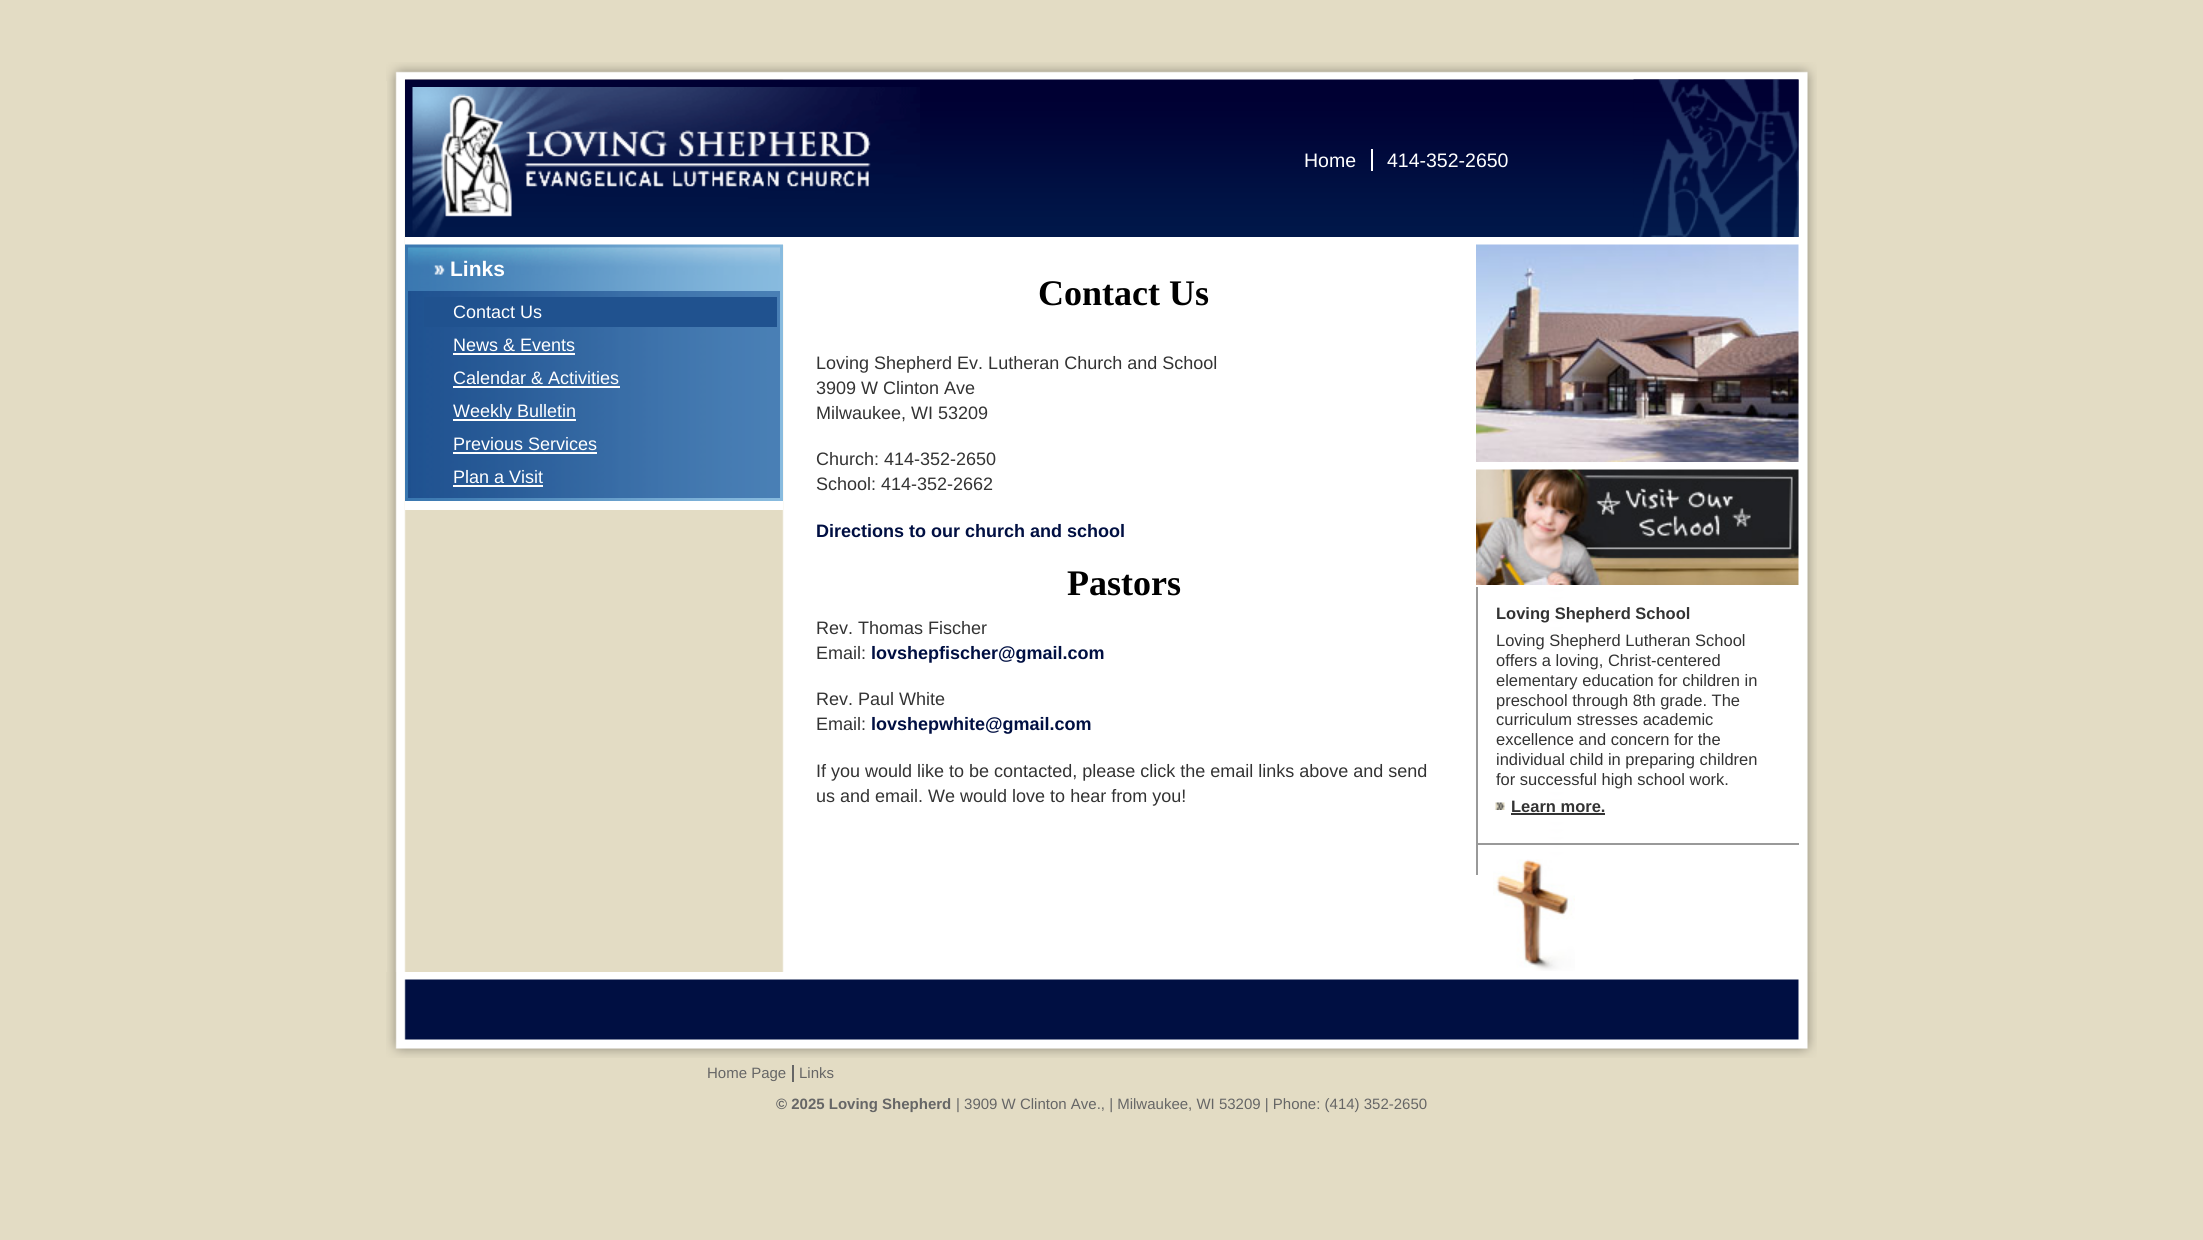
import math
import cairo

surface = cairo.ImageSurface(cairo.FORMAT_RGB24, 2203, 1240)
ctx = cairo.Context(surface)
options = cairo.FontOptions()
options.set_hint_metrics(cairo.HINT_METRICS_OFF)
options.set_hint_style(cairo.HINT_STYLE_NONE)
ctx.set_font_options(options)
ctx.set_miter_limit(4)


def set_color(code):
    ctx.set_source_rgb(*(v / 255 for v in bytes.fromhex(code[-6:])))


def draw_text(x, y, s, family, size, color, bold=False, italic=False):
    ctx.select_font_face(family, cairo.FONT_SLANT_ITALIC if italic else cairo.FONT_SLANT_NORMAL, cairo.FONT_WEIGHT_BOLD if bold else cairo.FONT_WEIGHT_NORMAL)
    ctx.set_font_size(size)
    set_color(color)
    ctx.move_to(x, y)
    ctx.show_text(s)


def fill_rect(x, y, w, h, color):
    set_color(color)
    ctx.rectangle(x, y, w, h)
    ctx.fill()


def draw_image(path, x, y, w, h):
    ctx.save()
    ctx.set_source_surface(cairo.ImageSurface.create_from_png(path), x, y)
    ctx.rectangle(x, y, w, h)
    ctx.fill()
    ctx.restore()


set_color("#e3dcc4")
ctx.paint()
draw_image("assets/img1.png", 386, 62, 1431, 19)
draw_image("assets/img2.png", 387, 79, 1430, 893)
fill_rect(405, 80, 379, 165, "#ffffff")
draw_image("assets/img3.png", 405, 79, 1394, 158)
draw_image("assets/img4.png", 412, 87, 508, 150)
draw_image("assets/img5.png", 1633, 79, 166, 158)
draw_text(1304, 167, "Home", "Liberation Sans", 19.5, "#ffffff")
fill_rect(1371, 149, 2, 22, "#ffffff")
draw_text(1387, 167, "414-352-2650", "Liberation Sans", 19.5, "#ffffff")
draw_image("assets/img6.png", 405, 244, 378, 257)
fill_rect(405, 501, 378, 9, "#ffffff")
draw_image("assets/img7.png", 408, 247, 372, 28)
draw_text(450, 276, "Links", "Liberation Sans", 21, "#ffffff", bold=True)
draw_image("assets/img8.png", 408, 291, 372, 207)
fill_rect(424, 297, 353, 30, "#20528f")
draw_text(453, 318, "Contact Us", "Liberation Sans", 18, "#ffffff")
draw_text(453, 351, "News & Events", "Liberation Sans", 18, "#ffffff")
fill_rect(453, 353, 122, 2, "#ffffff")
draw_text(453, 384, "Calendar & Activities", "Liberation Sans", 18, "#ffffff")
fill_rect(453, 386, 167, 2, "#ffffff")
fill_rect(453, 419, 123, 2, "#ffffff")
draw_text(453, 417, "Weekly Bulletin", "Liberation Sans", 18, "#ffffff")
draw_text(453, 450, "Previous Services", "Liberation Sans", 18, "#ffffff")
fill_rect(453, 452, 144, 2, "#ffffff")
draw_text(453, 483, "Plan a Visit", "Liberation Sans", 18, "#ffffff")
fill_rect(453, 485, 90, 2, "#ffffff")
draw_text(1038, 305, "Contact Us", "Liberation Serif", 36, "#000000", bold=True)
draw_text(816, 369, "Loving Shepherd Ev. Lutheran Church and School", "Liberation Sans", 18, "#333333")
draw_text(816, 394, "3909 W Clinton Ave", "Liberation Sans", 18, "#333333")
draw_text(816, 419, "Milwaukee, WI 53209", "Liberation Sans", 18, "#333333")
draw_text(816, 465, "Church: 414-352-2650", "Liberation Sans", 18, "#333333")
draw_text(816, 490, "School: 414-352-2662", "Liberation Sans", 18, "#333333")
draw_text(816, 537, "Directions to our church and school", "Liberation Sans", 18, "#000f42", bold=True)
draw_text(1067, 595, "Pastors", "Liberation Serif", 36, "#000000", bold=True)
draw_text(816, 634, "Rev. Thomas Fischer", "Liberation Sans", 18, "#333333")
draw_text(816, 659, "Email:", "Liberation Sans", 18, "#333333")
draw_text(871, 659, "lovshepfischer@gmail.com", "Liberation Sans", 18, "#000f42", bold=True)
draw_text(816, 705, "Rev. Paul White", "Liberation Sans", 18, "#333333")
draw_text(816, 730, "Email:", "Liberation Sans", 18, "#333333")
draw_text(871, 730, "lovshepwhite@gmail.com", "Liberation Sans", 18, "#000f42", bold=True)
draw_text(816, 777, "If you would like to be contacted, please click the email links above and send", "Liberation Sans", 18, "#333333")
draw_text(816, 802, "us and email. We would love to hear from you!", "Liberation Sans", 18, "#333333")
draw_image("assets/img9.png", 1476, 244, 323, 218)
draw_image("assets/img10.png", 1476, 469, 323, 116)
fill_rect(1476, 843, 323, 2, "#999999")
fill_rect(1476, 587, 2, 288, "#999999")
draw_text(1496, 619, "Loving Shepherd School", "Liberation Sans", 16.5, "#333333", bold=True)
draw_text(1496, 646, "Loving Shepherd Lutheran School", "Liberation Sans", 16.5, "#333333")
draw_text(1496, 666, "offers a loving, Christ-centered", "Liberation Sans", 16.5, "#333333")
draw_text(1496, 686, "elementary education for children in", "Liberation Sans", 16.5, "#333333")
draw_text(1496, 706, "preschool through 8th grade. The", "Liberation Sans", 16.5, "#333333")
draw_text(1496, 725, "curriculum stresses academic", "Liberation Sans", 16.5, "#333333")
draw_text(1496, 745, "excellence and concern for the", "Liberation Sans", 16.5, "#333333")
draw_text(1496, 765, "individual child in preparing children", "Liberation Sans", 16.5, "#333333")
draw_text(1496, 785, "for successful high school work.", "Liberation Sans", 16.5, "#333333")
draw_image("assets/img11.png", 1495, 802, 10, 8)
draw_text(1511, 812, "Learn more.", "Liberation Sans", 16.5, "#333333", bold=True)
fill_rect(1511, 813, 94, 2, "#333333")
draw_image("assets/img12.png", 1493, 859, 82, 112)
draw_image("assets/img13.png", 386, 972, 1431, 86)
draw_text(707, 1078, "Home Page", "Liberation Sans", 15, "#666666")
fill_rect(792, 1065, 2, 17, "#666666")
draw_text(799, 1078, "Links", "Liberation Sans", 15, "#666666")
draw_text(776, 1109, "© 2025 Loving Shepherd", "Liberation Sans", 15, "#666666", bold=True)
draw_text(956, 1109, "| 3909 W Clinton Ave., | Milwaukee, WI 53209 | Phone: (414) 352-2650", "Liberation Sans", 15, "#666666")
surface.write_to_png("output.png")
